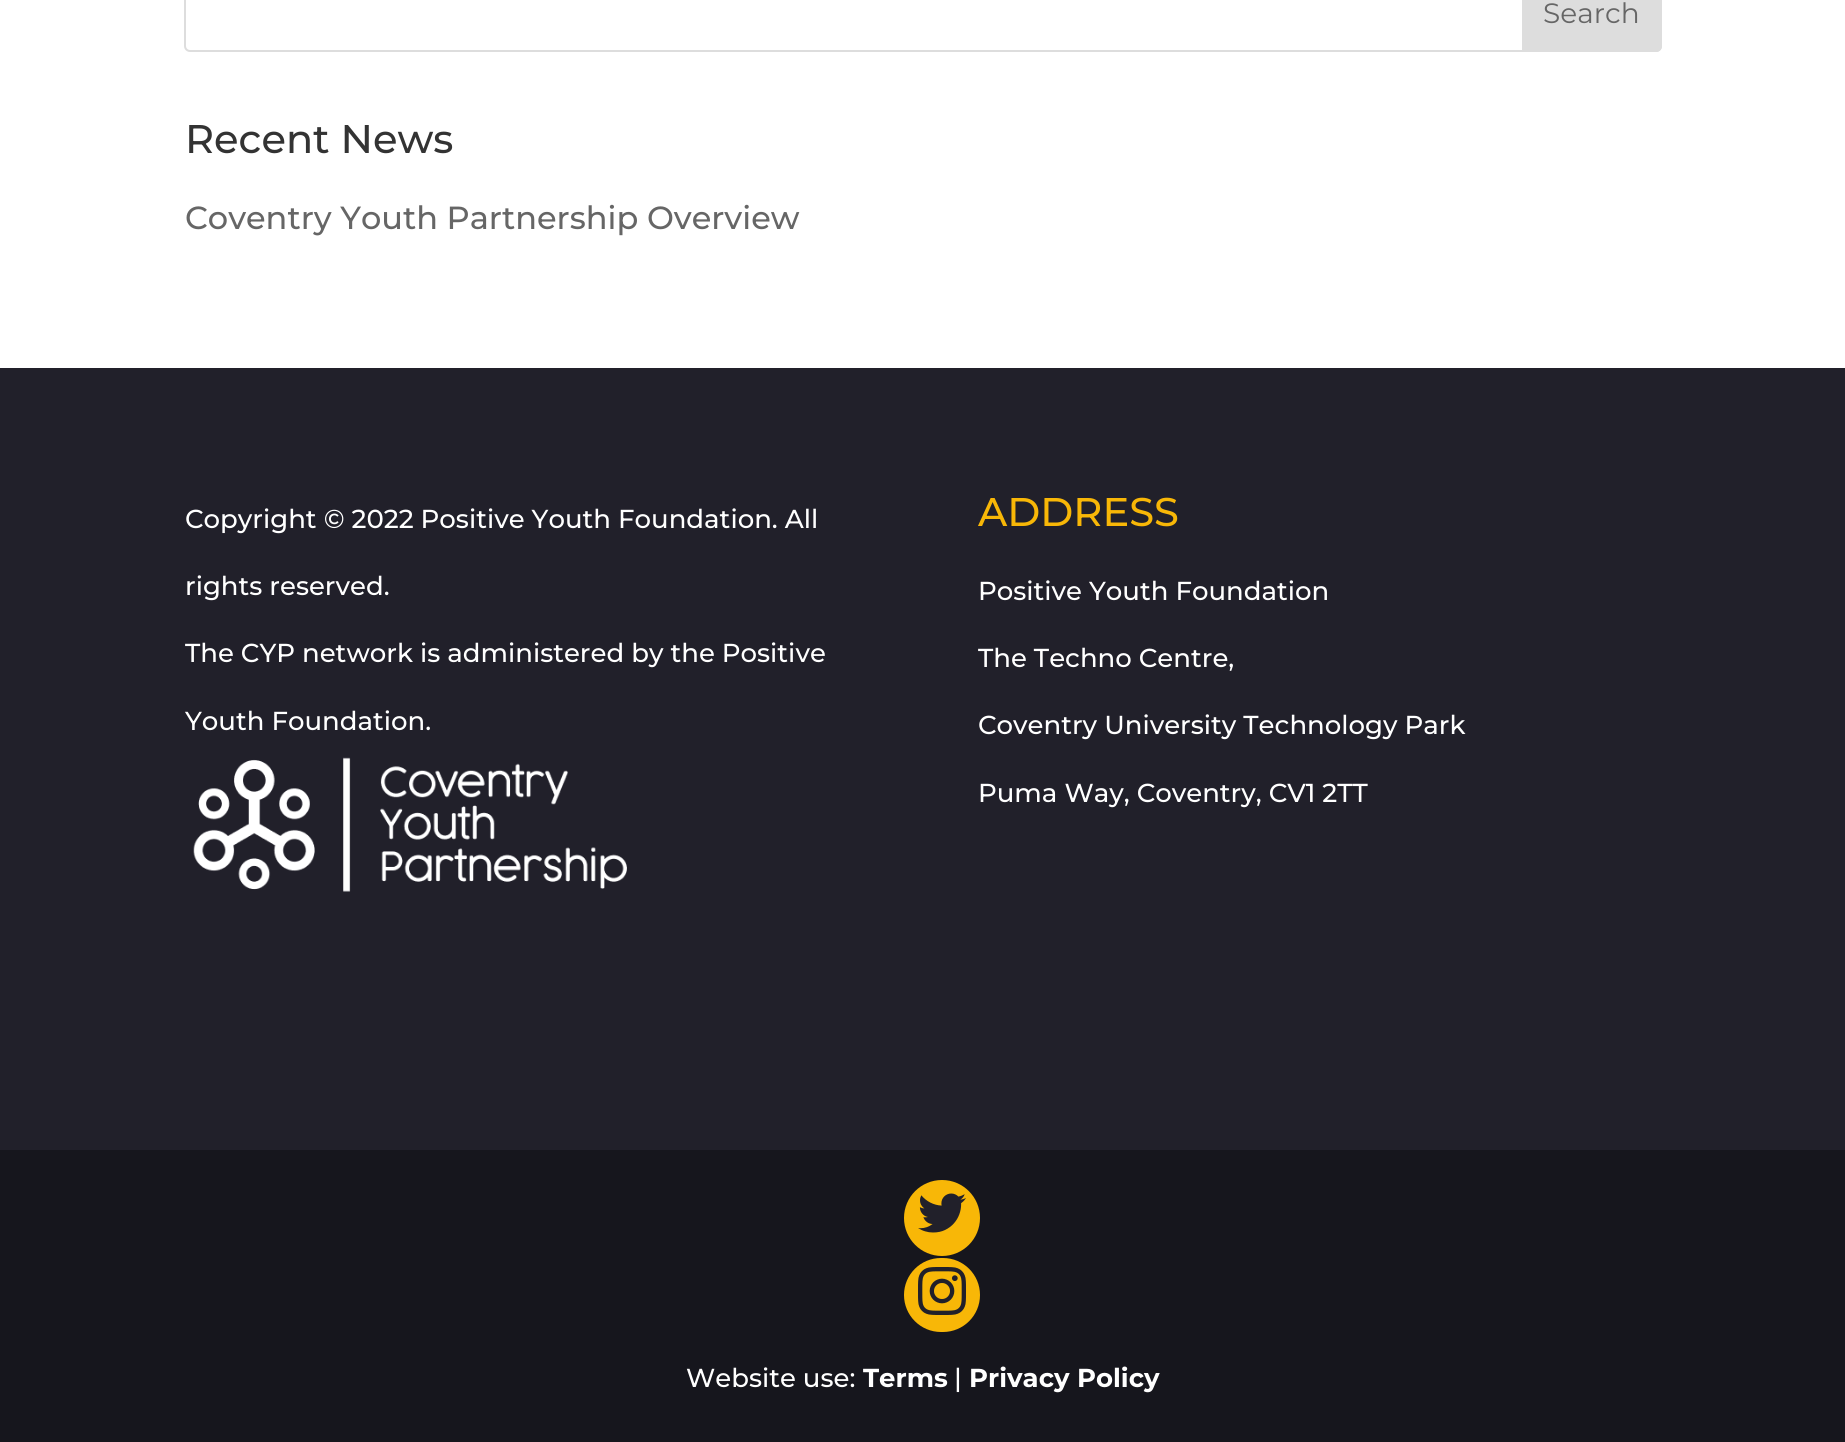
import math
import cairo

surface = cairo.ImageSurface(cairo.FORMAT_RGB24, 1845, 1442)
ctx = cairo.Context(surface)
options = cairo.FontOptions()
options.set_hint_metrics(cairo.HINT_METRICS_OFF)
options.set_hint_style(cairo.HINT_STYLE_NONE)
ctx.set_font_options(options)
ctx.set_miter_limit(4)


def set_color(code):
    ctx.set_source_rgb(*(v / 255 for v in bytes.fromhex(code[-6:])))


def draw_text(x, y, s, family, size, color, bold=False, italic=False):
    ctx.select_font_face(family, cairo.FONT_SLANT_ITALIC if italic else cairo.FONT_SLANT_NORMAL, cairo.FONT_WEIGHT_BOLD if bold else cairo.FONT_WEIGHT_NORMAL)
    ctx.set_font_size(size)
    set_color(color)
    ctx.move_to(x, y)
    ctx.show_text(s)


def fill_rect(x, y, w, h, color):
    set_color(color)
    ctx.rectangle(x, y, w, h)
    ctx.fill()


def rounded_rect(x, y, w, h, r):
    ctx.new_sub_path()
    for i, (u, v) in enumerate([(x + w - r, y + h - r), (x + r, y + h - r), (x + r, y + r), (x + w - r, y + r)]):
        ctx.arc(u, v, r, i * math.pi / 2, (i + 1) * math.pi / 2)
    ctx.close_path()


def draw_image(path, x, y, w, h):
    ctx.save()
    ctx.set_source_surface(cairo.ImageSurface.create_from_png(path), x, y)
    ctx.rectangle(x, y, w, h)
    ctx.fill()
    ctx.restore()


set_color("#ffffff")
ctx.paint()
rounded_rect(185, -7, 1476, 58, 5)
set_color("#dddddd")
ctx.stroke()
ctx.new_path()
ctx.move_to(1523, -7)
ctx.line_to(1656, -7)
ctx.curve_to(1659, -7, 1661, -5, 1661, -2)
ctx.line_to(1661, 46)
ctx.curve_to(1661, 49, 1659, 51, 1656, 51)
ctx.line_to(1523, 51)
ctx.close_path()
ctx.fill_preserve()
ctx.stroke()
draw_text(1543, 23, "Search", "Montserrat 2 Thin", 28, "#666666")
draw_text(185, 153, "Recent News", "Montserrat Thin", 40, "#333333")
draw_text(185, 229, "Coventry Youth Partnership Overview", "Montserrat Thin", 32, "#666666")
fill_rect(0, 368, 1845, 782, "#21202a")
draw_text(185, 528, "Copyright © 2022 Positive Youth Foundation. All", "Montserrat Thin", 26, "#ffffff")
draw_text(185, 595, "rights reserved.", "Montserrat Thin", 26, "#ffffff")
draw_text(185, 662, "The CYP network is administered by the Positive", "Montserrat Thin", 26, "#ffffff")
draw_text(185, 730, "Youth Foundation.", "Montserrat Thin", 26, "#ffffff")
draw_image("assets/img1.png", 193, 757, 434, 135)
draw_text(978, 526, "ADDRESS", "Montserrat Thin", 40, "#f8b707")
draw_text(978, 600, "Positive Youth Foundation", "Montserrat Thin", 26, "#ffffff")
draw_text(978, 667, "The Techno Centre,", "Montserrat Thin", 26, "#ffffff")
draw_text(978, 734, "Coventry University Technology Park", "Montserrat Thin", 26, "#ffffff")
draw_text(978, 802, "Puma Way, Coventry, CV1 2TT", "Montserrat Thin", 26, "#ffffff")
fill_rect(0, 1150, 1845, 292, "#16161d")
set_color("#f8b707")
ctx.new_path()
ctx.arc(942, 1218, 38, 0, 2 * math.pi)
ctx.fill()
draw_image("assets/img2.png", 918, 1193, 48, 40)
rounded_rect(904, 1258, 76, 74, 37)
ctx.fill()
draw_image("assets/img3.png", 918, 1267, 48, 48)
draw_text(686, 1387, "Website use:", "Montserrat Thin", 26, "#ffffff")
draw_text(863, 1387, "Terms", "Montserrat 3 Thin", 26, "#ffffff")
draw_text(954, 1387, "|", "Montserrat Thin", 26, "#ffffff")
draw_text(969, 1387, "Privacy Policy", "Montserrat 3 Thin", 26, "#ffffff")
surface.write_to_png("output.png")
